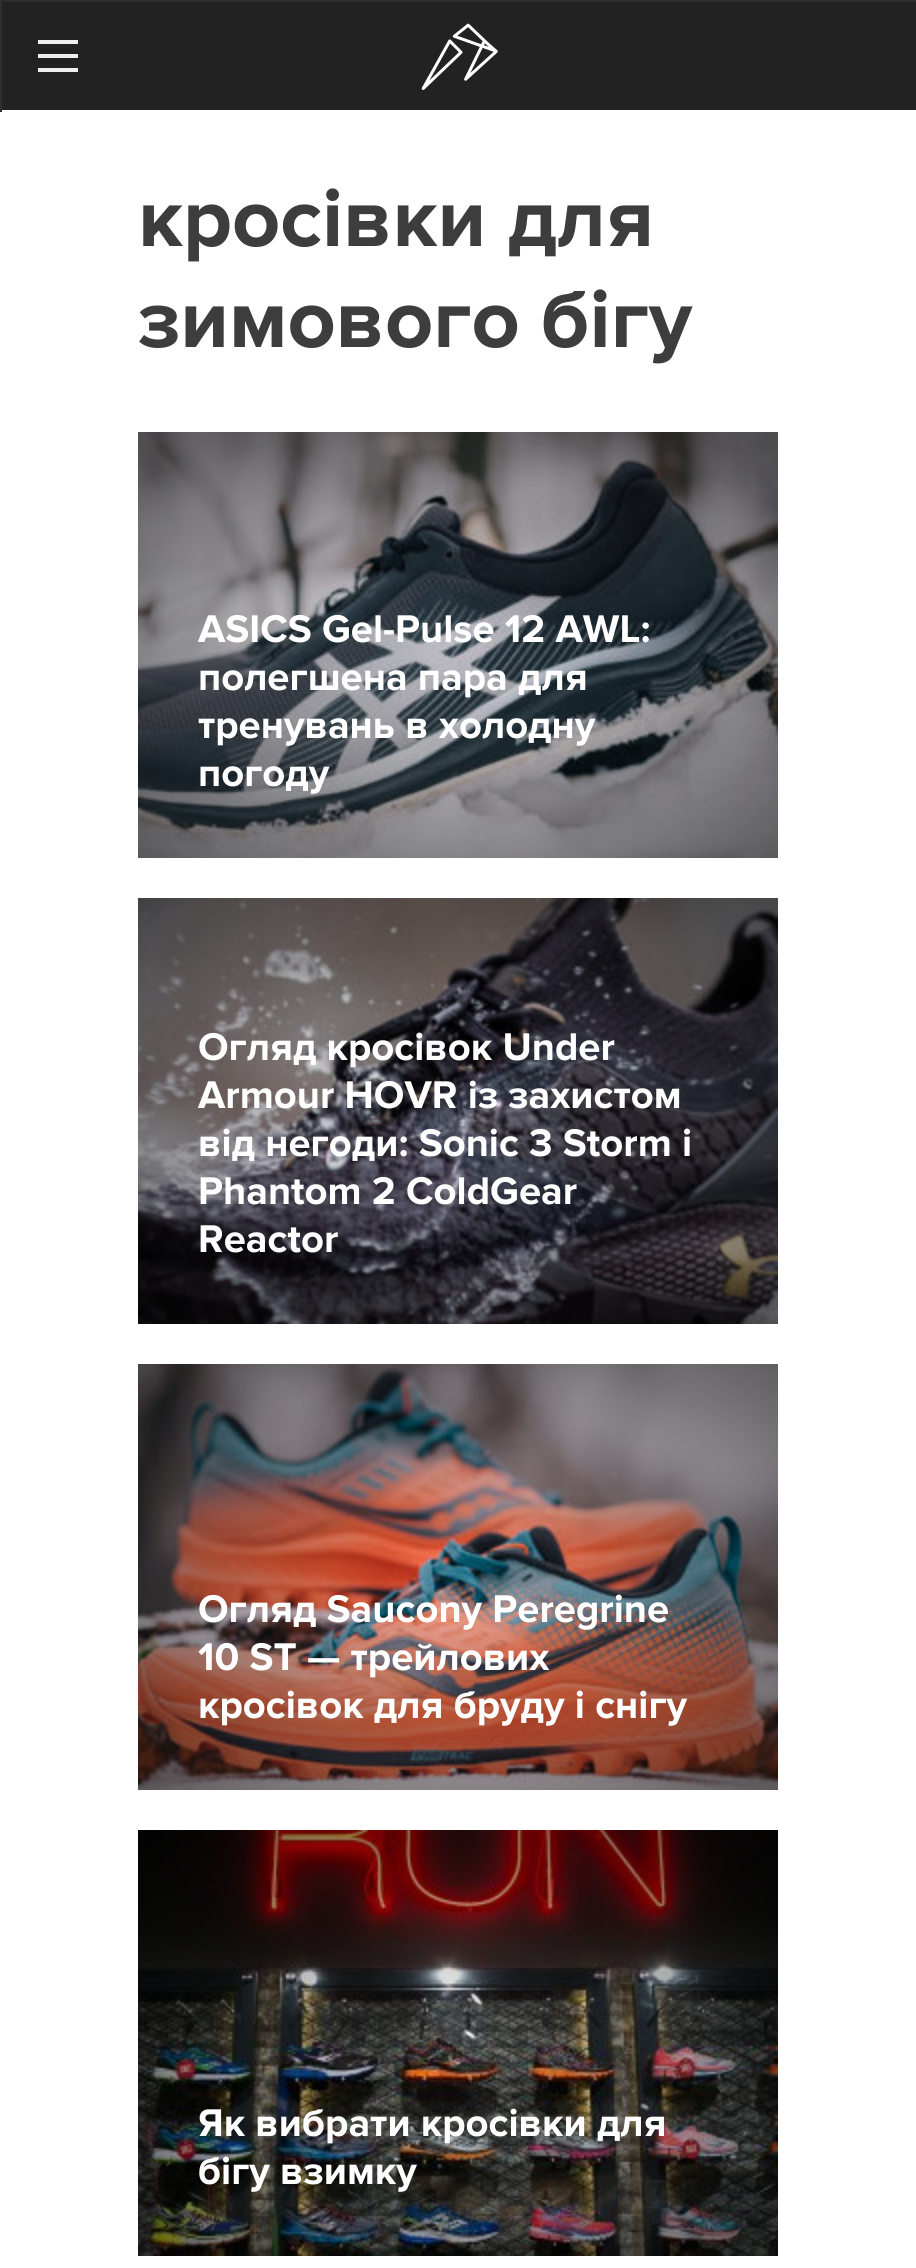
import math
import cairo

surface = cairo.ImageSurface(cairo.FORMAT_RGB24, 916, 2268)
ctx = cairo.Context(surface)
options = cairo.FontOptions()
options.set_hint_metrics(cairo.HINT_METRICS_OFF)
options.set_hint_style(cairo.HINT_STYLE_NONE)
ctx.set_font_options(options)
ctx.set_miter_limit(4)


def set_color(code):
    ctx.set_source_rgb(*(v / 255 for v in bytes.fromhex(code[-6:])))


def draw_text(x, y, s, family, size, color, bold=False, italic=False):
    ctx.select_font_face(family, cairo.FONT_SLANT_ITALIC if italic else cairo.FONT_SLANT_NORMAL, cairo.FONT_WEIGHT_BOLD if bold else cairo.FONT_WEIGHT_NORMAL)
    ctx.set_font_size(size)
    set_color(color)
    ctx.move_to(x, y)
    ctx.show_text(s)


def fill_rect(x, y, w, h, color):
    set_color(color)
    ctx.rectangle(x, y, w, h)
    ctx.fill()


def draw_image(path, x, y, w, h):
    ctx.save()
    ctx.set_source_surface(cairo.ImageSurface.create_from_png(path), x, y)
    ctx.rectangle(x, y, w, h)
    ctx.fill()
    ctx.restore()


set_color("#ffffff")
ctx.paint()
fill_rect(2, 2, 914, 108, "#222222")
fill_rect(0, 0, 916, 2, "#2e2e2e")
fill_rect(0, 2, 2, 110, "#2e2e2e")
fill_rect(38, 40, 40, 4, "#eeeeee")
fill_rect(38, 54, 40, 4, "#eeeeee")
fill_rect(38, 68, 40, 4, "#eeeeee")
draw_image("assets/img1.png", 421, 23, 77, 67)
draw_text(138, 246, "кросівки для", "Proxima Nova", 84, "#3d3d3d", bold=True)
draw_text(138, 347, "зимового бігу", "Proxima Nova", 84, "#3d3d3d", bold=True)
draw_image("assets/img2.png", 138, 432, 640, 426)
draw_text(198, 642, "ASICS Gel-Pulse 12 AWL:", "Proxima Nova", 40, "#ffffff", bold=True)
draw_text(198, 690, "полегшена пара для", "Proxima Nova", 40, "#ffffff", bold=True)
draw_text(198, 738, "тренувань в холодну", "Proxima Nova", 40, "#ffffff", bold=True)
draw_text(198, 786, "погоду", "Proxima Nova", 40, "#ffffff", bold=True)
draw_image("assets/img3.png", 138, 898, 640, 426)
draw_text(198, 1060, "Огляд кросівок Under", "Proxima Nova", 40, "#ffffff", bold=True)
draw_text(198, 1108, "Armour HOVR із захистом", "Proxima Nova", 40, "#ffffff", bold=True)
draw_text(198, 1156, "від негоди: Sonic 3 Storm і", "Proxima Nova", 40, "#ffffff", bold=True)
draw_text(198, 1204, "Phantom 2 ColdGear", "Proxima Nova", 40, "#ffffff", bold=True)
draw_text(198, 1252, "Reactor", "Proxima Nova", 40, "#ffffff", bold=True)
draw_image("assets/img4.png", 138, 1364, 640, 426)
draw_text(198, 1622, "Огляд Saucony Peregrine", "Proxima Nova", 40, "#ffffff", bold=True)
draw_text(198, 1670, "10 ST — трейлових", "Proxima Nova", 40, "#ffffff", bold=True)
draw_text(198, 1718, "кросівок для бруду і снігу", "Proxima Nova", 40, "#ffffff", bold=True)
draw_image("assets/img5.png", 138, 1830, 640, 426)
draw_text(198, 2136, "Як вибрати кросівки для", "Proxima Nova", 40, "#ffffff", bold=True)
draw_text(198, 2184, "бігу взимку", "Proxima Nova", 40, "#ffffff", bold=True)
surface.write_to_png("output.png")
